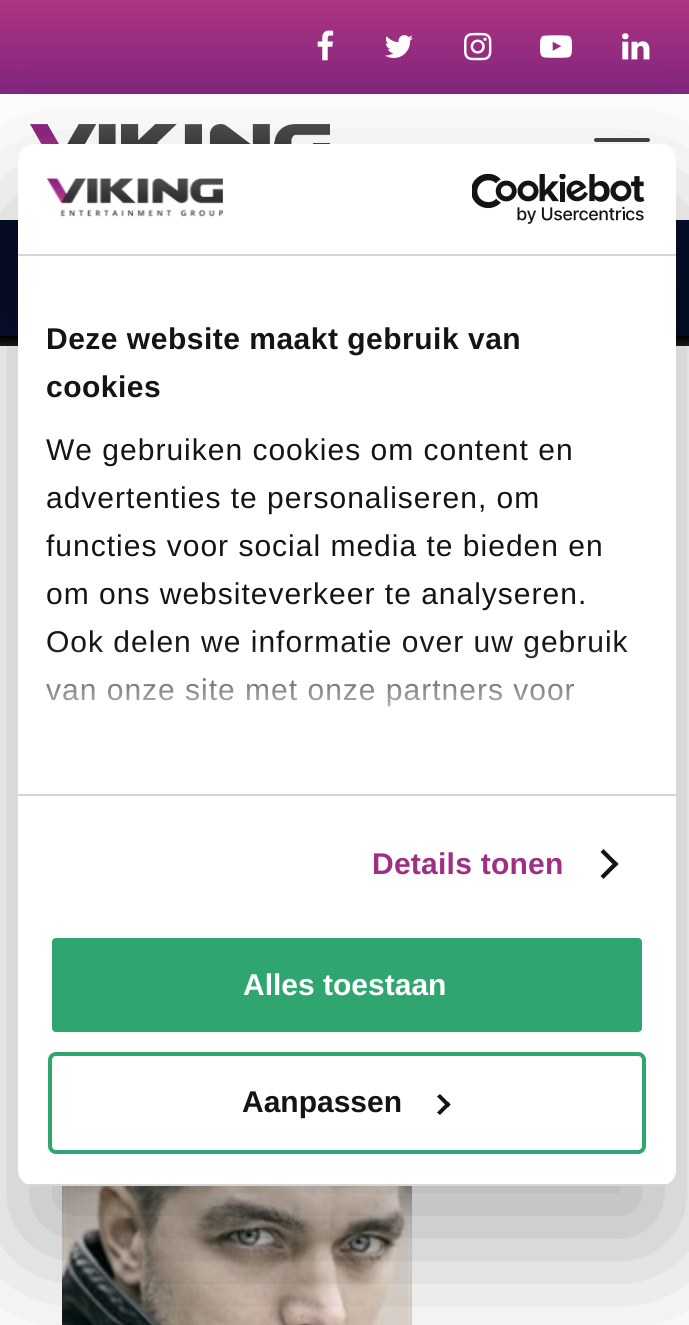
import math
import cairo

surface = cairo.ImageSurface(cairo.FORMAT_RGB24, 689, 1325)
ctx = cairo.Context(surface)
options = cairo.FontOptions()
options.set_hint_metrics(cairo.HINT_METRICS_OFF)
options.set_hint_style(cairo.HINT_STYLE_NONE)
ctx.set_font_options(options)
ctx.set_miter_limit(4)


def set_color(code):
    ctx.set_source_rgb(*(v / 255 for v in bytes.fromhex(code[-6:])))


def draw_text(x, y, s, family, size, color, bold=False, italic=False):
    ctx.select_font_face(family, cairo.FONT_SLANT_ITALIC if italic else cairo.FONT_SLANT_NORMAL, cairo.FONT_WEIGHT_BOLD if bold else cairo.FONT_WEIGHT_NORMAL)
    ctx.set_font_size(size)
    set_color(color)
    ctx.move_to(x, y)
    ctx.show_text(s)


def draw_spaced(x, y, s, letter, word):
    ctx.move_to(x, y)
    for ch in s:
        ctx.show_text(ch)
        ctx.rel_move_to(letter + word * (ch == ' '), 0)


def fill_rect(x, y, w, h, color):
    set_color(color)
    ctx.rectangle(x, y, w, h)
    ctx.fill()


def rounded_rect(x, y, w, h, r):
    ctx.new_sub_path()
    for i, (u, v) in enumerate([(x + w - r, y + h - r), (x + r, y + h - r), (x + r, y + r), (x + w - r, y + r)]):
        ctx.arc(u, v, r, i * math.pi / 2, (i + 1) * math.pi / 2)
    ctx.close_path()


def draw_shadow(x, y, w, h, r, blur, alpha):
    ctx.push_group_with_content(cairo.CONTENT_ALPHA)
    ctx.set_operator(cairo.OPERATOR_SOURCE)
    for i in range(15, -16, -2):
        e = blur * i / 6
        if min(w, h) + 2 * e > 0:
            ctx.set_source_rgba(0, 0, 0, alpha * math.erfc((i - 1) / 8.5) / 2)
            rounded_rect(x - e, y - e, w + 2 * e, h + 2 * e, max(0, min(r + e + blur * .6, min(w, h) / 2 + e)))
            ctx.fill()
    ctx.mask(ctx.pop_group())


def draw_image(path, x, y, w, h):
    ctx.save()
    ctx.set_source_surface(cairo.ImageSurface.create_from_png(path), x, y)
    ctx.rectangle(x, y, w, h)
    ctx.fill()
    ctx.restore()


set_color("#ffffff")
ctx.paint()
draw_image("assets/img1.png", 0, 0, 689, 336)
gradient = cairo.LinearGradient(345, 336, 345, 346)
gradient.add_color_stop_rgba(0, 0, 0, 0, 1)
gradient.add_color_stop_rgba(1, 0.133, 0.114, 0.133, 1)
ctx.set_source(gradient)
ctx.rectangle(0, 336, 689, 10)
ctx.fill()
draw_image("assets/img2.png", 62, 1186, 350, 139)
draw_image("assets/img3.png", 317, 30, 17, 31)
draw_image("assets/img4.png", 385, 35, 28, 23)
draw_image("assets/img5.png", 464, 32, 28, 29)
draw_image("assets/img6.png", 540, 35, 32, 23)
draw_image("assets/img7.png", 622, 33, 28, 27)
fill_rect(0, 94, 689, 126, "#ffffff")
draw_image("assets/img8.png", 30, 124, 300, 20)
set_color("#444345")
rounded_rect(594, 138, 56, 4, 2)
ctx.fill()
set_color("#000000")
draw_shadow(18, 208, 658, 1042, 16, 68, 0.3)
set_color("#ffffff")
rounded_rect(18, 144, 658, 1042, 16)
ctx.fill()
fill_rect(18, 254, 658, 2, "#d6d6d6")
draw_image("assets/img9.png", 46, 178, 177, 39)
draw_image("assets/img10.png", 472, 174, 173, 50)
fill_rect(18, 794, 658, 2, "#d6d6d6")
ctx.select_font_face("Liberation Sans", cairo.FONT_SLANT_NORMAL, cairo.FONT_WEIGHT_BOLD)
ctx.set_font_size(30)
set_color("#141414")
draw_spaced(46, 349, "Deze website maakt gebruik van", 0.5, 0)
draw_spaced(46, 397, "cookies", 0.5, 0)
ctx.select_font_face("Liberation Sans")
draw_spaced(46, 460, "We gebruiken cookies om content en", 1, 0)
draw_spaced(46, 508, "advertenties te personaliseren, om", 1, 0)
draw_spaced(46, 556, "functies voor social media te bieden en", 1, 0)
draw_spaced(46, 604, "om ons websiteverkeer te analyseren.", 1, 0)
draw_spaced(46, 652, "Ook delen we informatie over uw gebruik", 1, 0)
draw_spaced(46, 700, "van onze site met onze partners voor", 1, 0)
gradient = cairo.LinearGradient(333, 793, 333, 643)
gradient.add_color_stop_rgba(0, 1, 1, 1, 1)
gradient.add_color_stop_rgba(0.5, 1, 1, 1, 0.8)
gradient.add_color_stop_rgba(1, 1, 1, 1, 0)
ctx.set_source(gradient)
ctx.rectangle(46, 645, 582, 62)
ctx.fill()
ctx.select_font_face("Liberation Sans", cairo.FONT_SLANT_NORMAL, cairo.FONT_WEIGHT_BOLD)
set_color("#a02e84")
draw_spaced(372, 874, "Details tonen", 0.25, 0)
set_color("#141414")
ctx.new_path()
ctx.move_to(603.5, 849)
ctx.line_to(618.5, 864)
ctx.line_to(615.5, 867)
ctx.line_to(600.5, 852)
ctx.close_path()
ctx.fill()
ctx.new_path()
ctx.move_to(615.5, 861)
ctx.line_to(618.5, 864)
ctx.line_to(603.5, 879)
ctx.line_to(600.5, 876)
ctx.close_path()
ctx.fill()
ctx.save()
rounded_rect(18, 144, 658, 1042, 16)
ctx.clip()
fill_rect(18, 1184, 658, 2, "#d6d6d6")
ctx.restore()
set_color("#2fa670")
rounded_rect(50, 936, 594, 98, 6)
ctx.fill_preserve()
set_color("#ffffff")
ctx.set_line_width(4)
ctx.stroke()
draw_text(243, 995, "Alles toestaan", "Liberation Sans", 30, "#ffffff", bold=True)
rounded_rect(50, 1054, 594, 98, 6)
set_color("#2fa670")
ctx.stroke()
draw_text(242, 1112, "Aanpassen", "Liberation Sans", 30, "#141414", bold=True)
ctx.new_path()
ctx.move_to(440, 1094)
ctx.line_to(450.5, 1104.5)
ctx.line_to(448, 1107.5)
ctx.line_to(437, 1096.5)
ctx.close_path()
ctx.fill()
ctx.new_path()
ctx.move_to(448, 1101.5)
ctx.line_to(450.5, 1104.5)
ctx.line_to(440, 1115)
ctx.line_to(437, 1112.5)
ctx.close_path()
ctx.fill()
surface.write_to_png("output.png")
